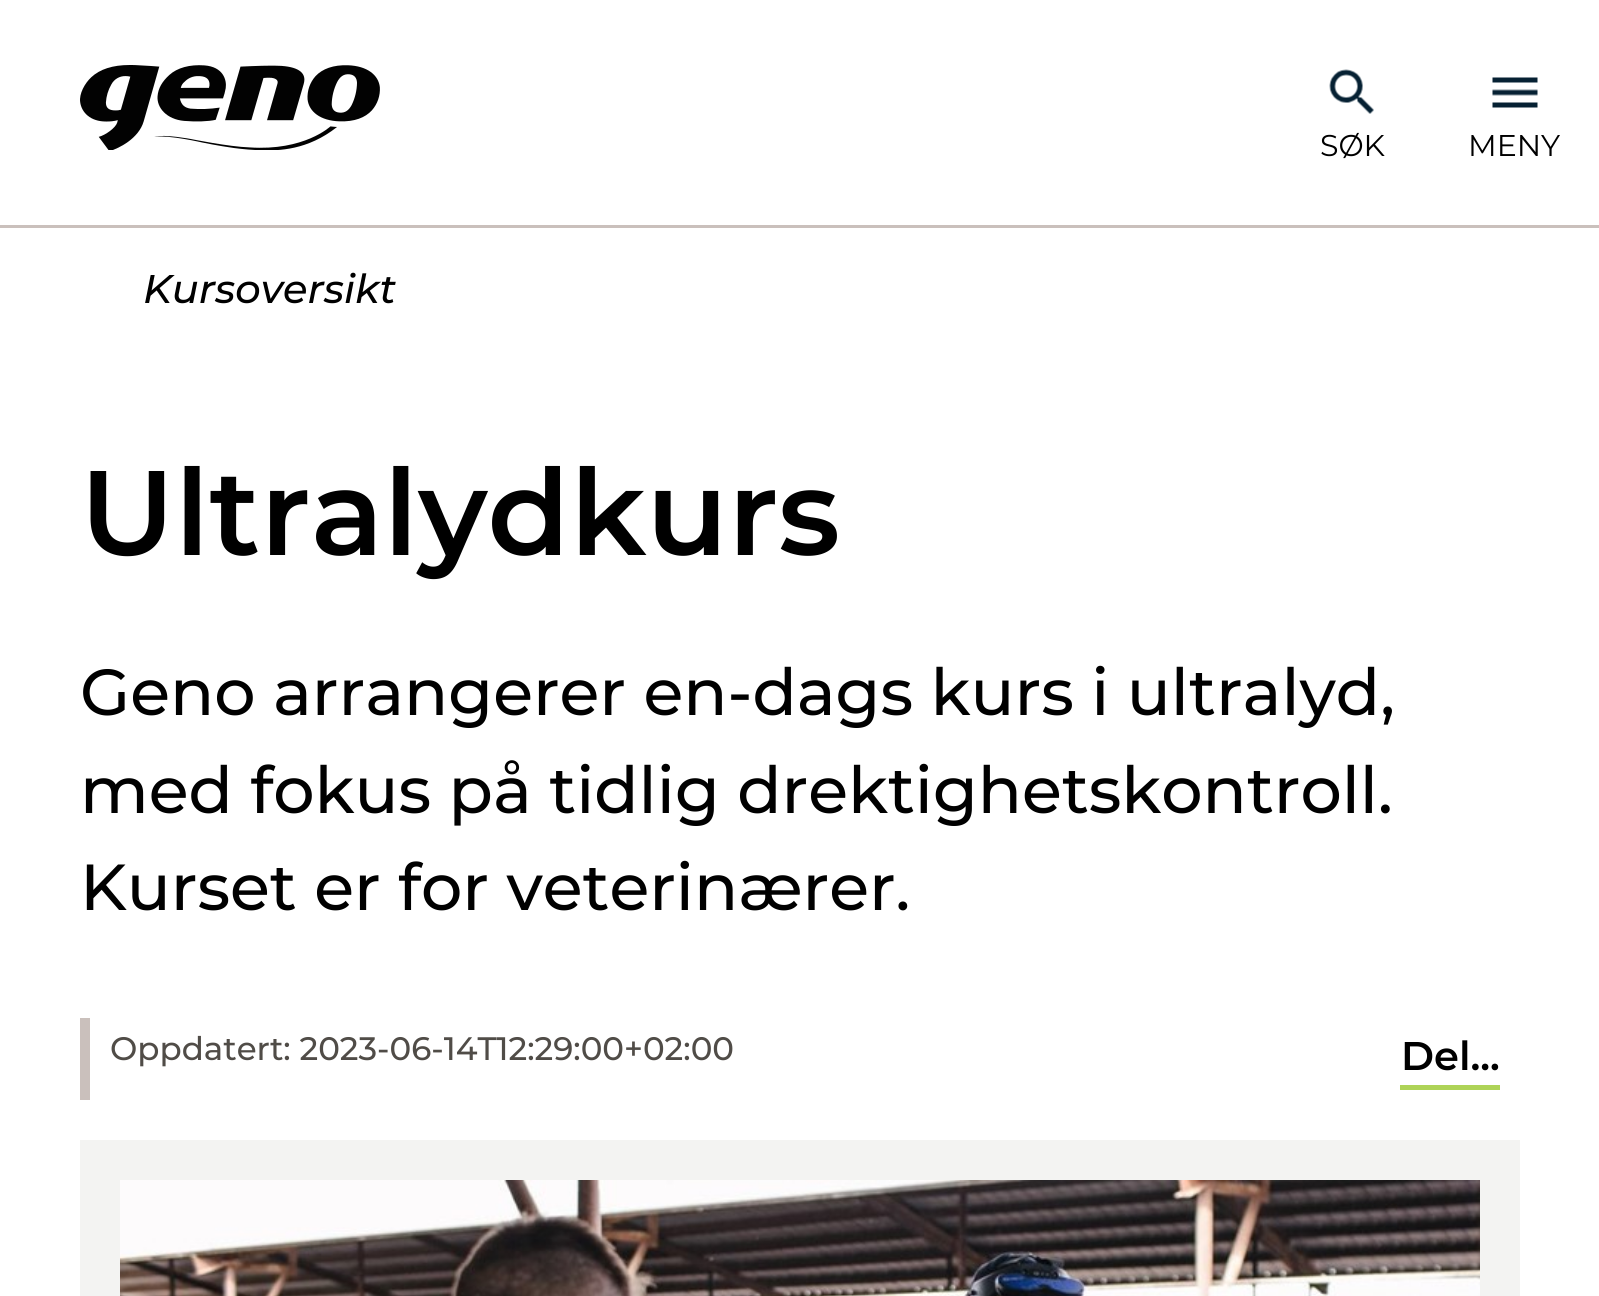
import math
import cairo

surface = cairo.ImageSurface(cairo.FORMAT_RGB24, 1599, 1296)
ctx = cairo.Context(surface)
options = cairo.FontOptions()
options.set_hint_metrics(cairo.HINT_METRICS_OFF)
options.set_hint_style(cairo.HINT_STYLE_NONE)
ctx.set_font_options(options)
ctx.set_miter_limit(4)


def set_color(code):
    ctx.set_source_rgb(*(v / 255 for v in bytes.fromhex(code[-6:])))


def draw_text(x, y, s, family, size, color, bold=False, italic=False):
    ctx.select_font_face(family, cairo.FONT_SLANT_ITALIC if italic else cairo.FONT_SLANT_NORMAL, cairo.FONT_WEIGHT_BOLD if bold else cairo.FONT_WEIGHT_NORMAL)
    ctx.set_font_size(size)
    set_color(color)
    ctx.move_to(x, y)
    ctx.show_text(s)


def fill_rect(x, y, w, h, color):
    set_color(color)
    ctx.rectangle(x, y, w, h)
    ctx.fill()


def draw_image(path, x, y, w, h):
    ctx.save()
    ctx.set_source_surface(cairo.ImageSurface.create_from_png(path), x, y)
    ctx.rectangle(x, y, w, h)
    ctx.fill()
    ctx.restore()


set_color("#ffffff")
ctx.paint()
fill_rect(0, 225, 1599, 3, "#cac0bc")
draw_image("assets/img1.png", 80, 65, 300, 85)
draw_image("assets/img2.png", 1329, 69, 45, 45)
draw_text(1320, 156, "SØK", "Montserrat", 30, "#000000")
draw_image("assets/img3.png", 1492, 77, 46, 31)
draw_text(1468, 156, "MENY", "Montserrat", 30, "#000000")
draw_text(143, 303, "Kursoversikt", "Montserrat Medium", 40, "#000000", italic=True)
draw_text(80, 555, "Ultralydkurs", "Montserrat SemiBold", 120, "#000000")
draw_text(80, 715, "Geno arrangerer en-dags kurs i ultralyd,", "Montserrat Medium", 65, "#000000")
draw_text(80, 813, "med fokus på tidlig drektighetskontroll.", "Montserrat Medium", 65, "#000000")
draw_text(80, 910, "Kurset er for veterinærer.", "Montserrat Medium", 65, "#000000")
fill_rect(80, 1018, 10, 82, "#cac0bc")
draw_text(110, 1060, "Oppdatert: 2023-06-14T12:29:00+02:00", "Montserrat Medium", 32.5, "#504c47")
fill_rect(1400, 1085, 100, 5, "#aed357")
draw_text(1401, 1070, "Del...", "Montserrat SemiBold", 40, "#000000")
fill_rect(80, 1140, 1440, 156, "#f3f3f2")
draw_image("assets/img4.png", 120, 1180, 1360, 116)
surface.write_to_png("output.png")
